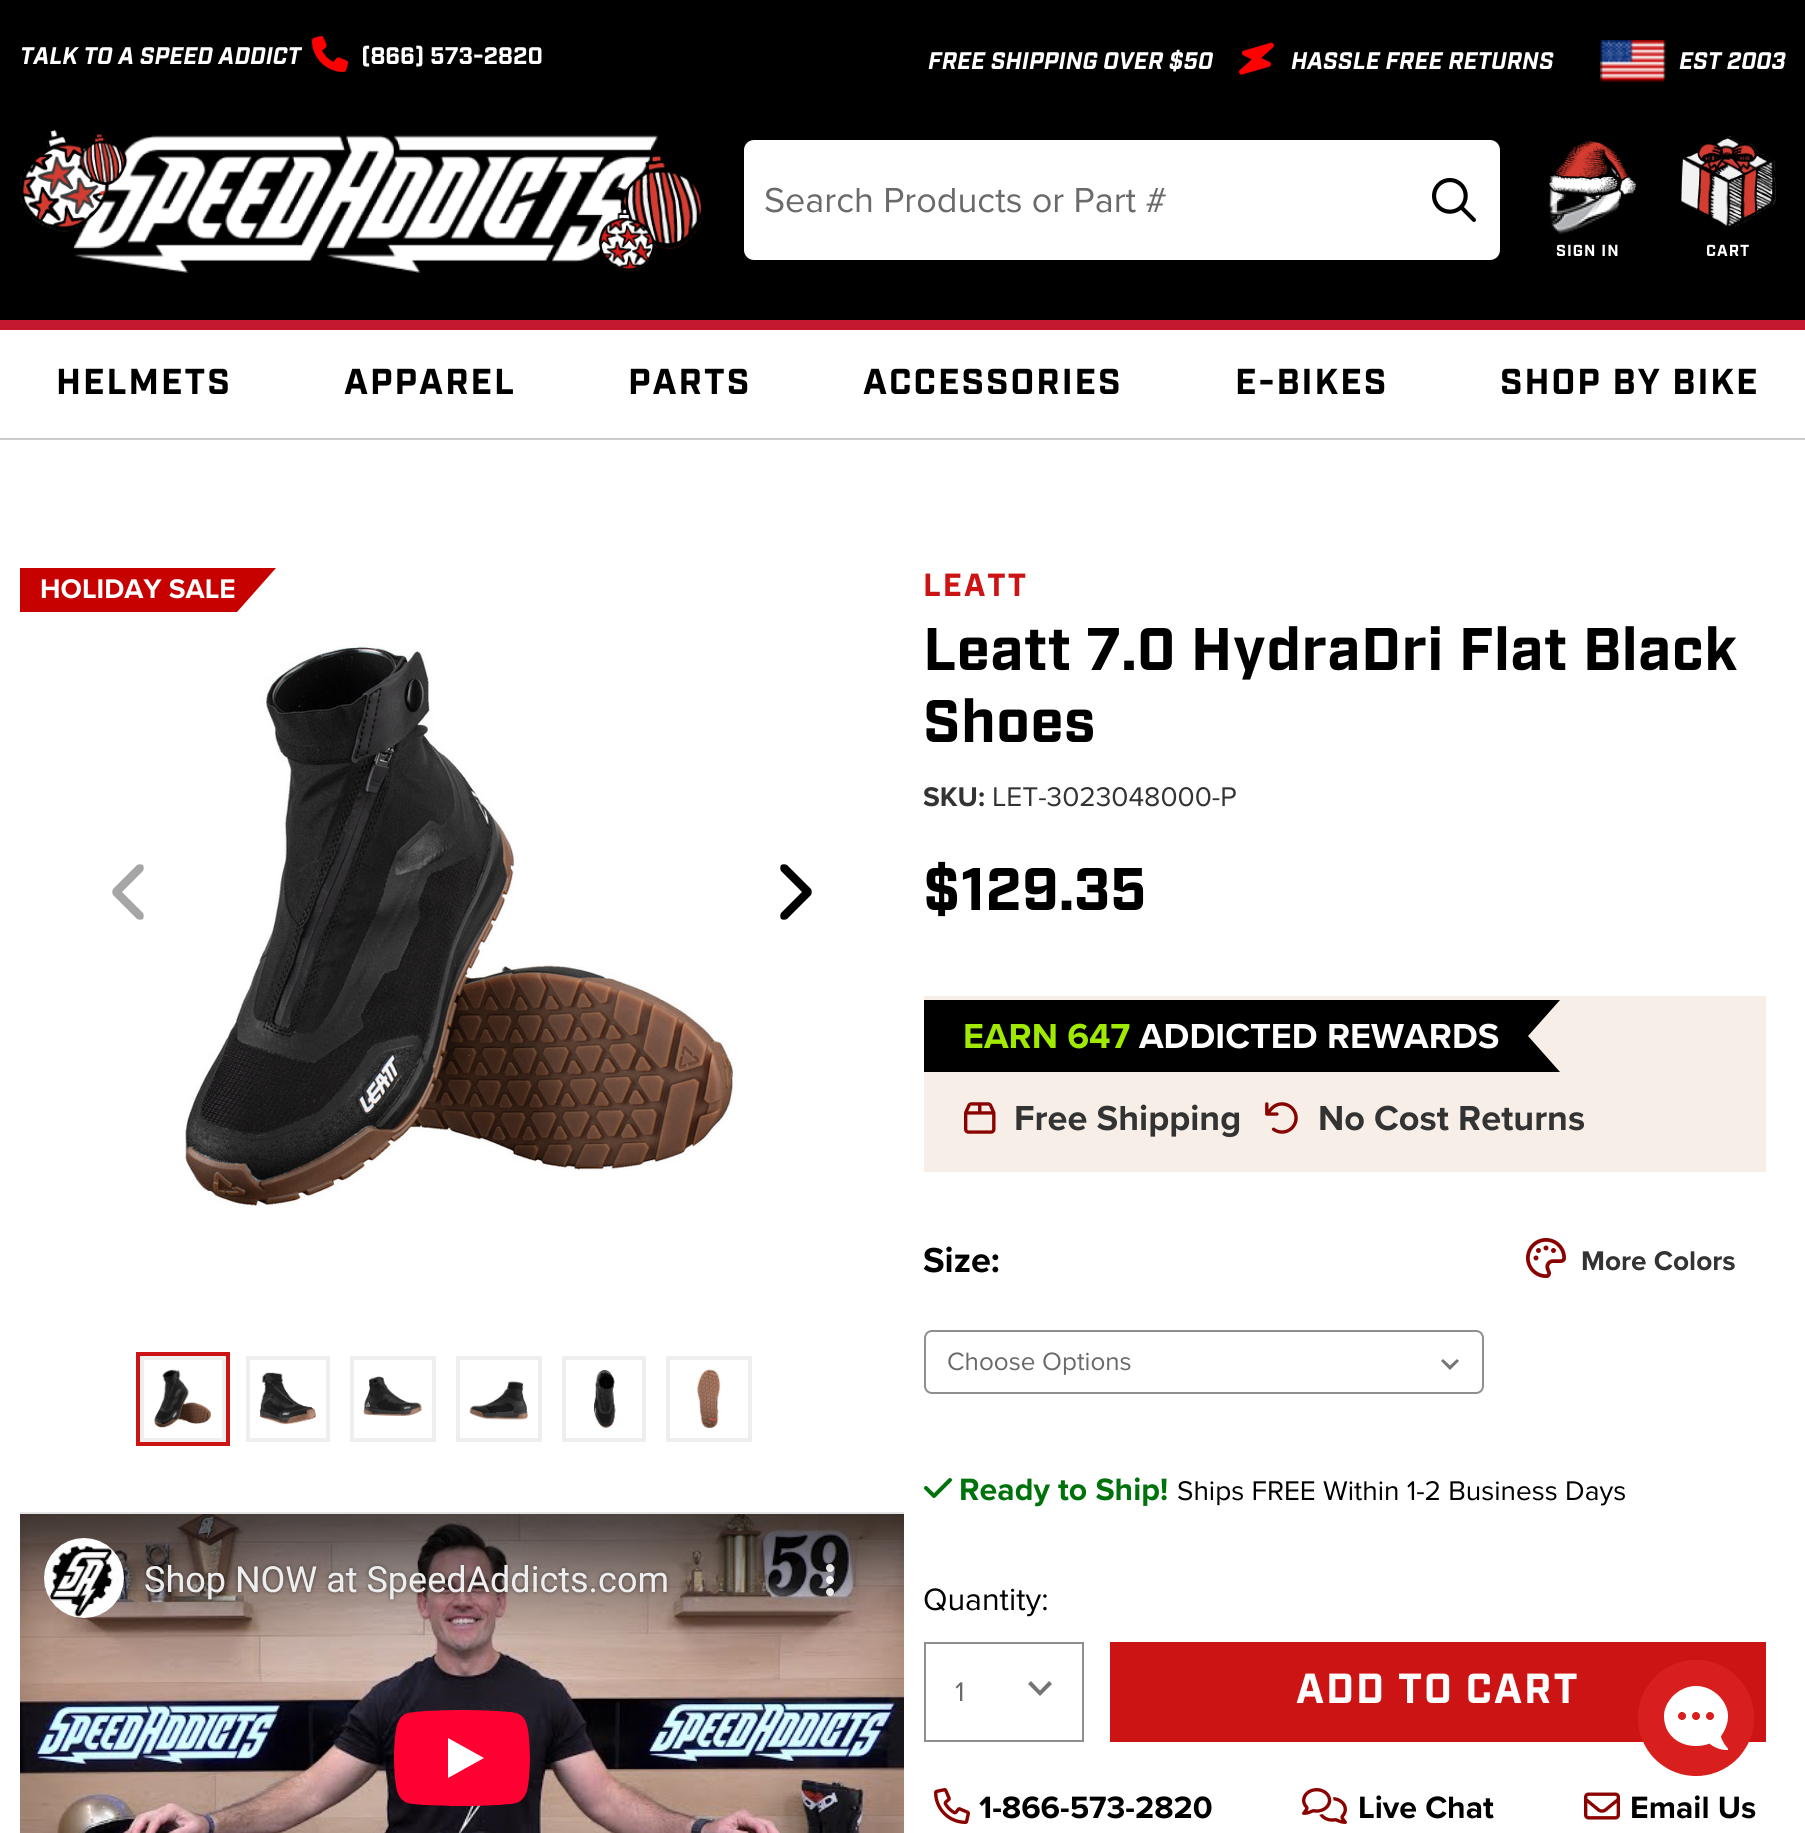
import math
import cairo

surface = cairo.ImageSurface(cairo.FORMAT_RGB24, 1805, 1833)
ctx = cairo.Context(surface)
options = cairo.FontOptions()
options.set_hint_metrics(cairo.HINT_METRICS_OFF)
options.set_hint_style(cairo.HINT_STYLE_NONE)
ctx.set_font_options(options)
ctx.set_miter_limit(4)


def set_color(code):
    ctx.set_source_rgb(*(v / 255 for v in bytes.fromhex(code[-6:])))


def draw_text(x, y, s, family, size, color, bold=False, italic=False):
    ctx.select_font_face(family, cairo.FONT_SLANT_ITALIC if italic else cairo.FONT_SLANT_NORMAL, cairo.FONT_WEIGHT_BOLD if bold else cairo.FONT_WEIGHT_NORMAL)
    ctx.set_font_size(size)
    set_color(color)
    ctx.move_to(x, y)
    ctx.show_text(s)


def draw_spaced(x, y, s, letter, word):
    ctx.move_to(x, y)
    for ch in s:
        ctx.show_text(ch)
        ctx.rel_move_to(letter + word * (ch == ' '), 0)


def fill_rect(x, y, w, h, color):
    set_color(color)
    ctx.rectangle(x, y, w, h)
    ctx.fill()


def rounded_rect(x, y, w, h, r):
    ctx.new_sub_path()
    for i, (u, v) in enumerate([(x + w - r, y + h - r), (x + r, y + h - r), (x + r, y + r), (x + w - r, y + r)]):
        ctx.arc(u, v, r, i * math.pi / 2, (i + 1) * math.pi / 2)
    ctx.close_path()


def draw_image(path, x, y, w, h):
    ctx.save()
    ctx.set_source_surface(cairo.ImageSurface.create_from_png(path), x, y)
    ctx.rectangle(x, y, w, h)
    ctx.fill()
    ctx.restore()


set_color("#ffffff")
ctx.paint()
fill_rect(0, 0, 1805, 320, "#000000")
draw_text(20, 64, "TALK TO A SPEED ADDICT", "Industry", 24, "#ffffff", bold=True, italic=True)
draw_image("assets/img1.png", 312, 36, 36, 36)
draw_text(361, 64, "(866) 573-2820", "Industry", 24, "#ffffff", bold=True)
draw_text(928, 69, "FREE SHIPPING OVER $50", "Industry", 24, "#ffffff", bold=True, italic=True)
draw_image("assets/img2.png", 1239, 42, 35, 33)
draw_text(1291, 69, "HASSLE FREE RETURNS", "Industry", 24, "#ffffff", bold=True, italic=True)
draw_image("assets/img3.png", 1600, 40, 67, 42)
draw_text(1679, 69, "EST 2003", "Industry", 24, "#ffffff", bold=True, italic=True)
draw_image("assets/img4.png", 20, 128, 684, 145)
rounded_rect(744, 140, 756, 120, 10)
ctx.fill()
draw_text(764, 212, "Search Products or Part #", "Proxima Nova", 36, "#6a6a6a")
draw_image("assets/img5.png", 1432, 178, 44, 44)
draw_image("assets/img6.png", 1548, 141, 88, 93)
ctx.select_font_face("Industry", cairo.FONT_SLANT_NORMAL, cairo.FONT_WEIGHT_BOLD)
ctx.set_font_size(16)
set_color("#ffffff")
draw_spaced(1556, 256, "SIGN IN", 1, 0)
draw_image("assets/img7.png", 1681, 136, 95, 92)
draw_spaced(1706, 256, "CART", 1, 0)
fill_rect(0, 320, 1805, 10, "#c41830")
fill_rect(0, 438, 1805, 2, "#cccccc")
ctx.set_font_size(36)
set_color("#000000")
draw_spaced(56, 394, "HELMETS", 2, 0)
draw_spaced(344, 394, "APPAREL", 2, 0)
draw_spaced(628, 394, "PARTS", 2, 0)
draw_spaced(863, 394, "ACCESSORIES", 2, 0)
draw_spaced(1235, 394, "E-BIKES", 2, 0)
draw_spaced(1500, 394, "SHOP BY BIKE", 2, 0)
set_color("#c70000")
ctx.new_path()
ctx.move_to(20, 568)
ctx.line_to(20, 612)
ctx.line_to(237, 612)
ctx.line_to(276, 568)
ctx.close_path()
ctx.fill()
draw_text(40, 598, "HOLIDAY SALE", "Proxima Nova", 28, "#ffffff", bold=True)
set_color("#a6a6a6")
ctx.new_path()
ctx.move_to(113, 889)
ctx.curve_to(112, 891, 112, 893, 113, 895)
ctx.line_to(137, 919)
ctx.curve_to(139, 920, 141, 920, 143, 919)
ctx.curve_to(144, 917, 144, 915, 143, 913)
ctx.line_to(122, 892)
ctx.line_to(143, 871)
ctx.curve_to(144, 869, 144, 867, 143, 865)
ctx.curve_to(141, 864, 139, 864, 137, 865)
ctx.close_path()
ctx.fill()
draw_image("assets/img8.png", 182, 644, 555, 562)
set_color("#000000")
ctx.new_path()
ctx.move_to(811, 889)
ctx.curve_to(812, 891, 812, 893, 811, 895)
ctx.line_to(787, 919)
ctx.curve_to(785, 920, 783, 920, 781, 919)
ctx.curve_to(780, 917, 780, 915, 781, 913)
ctx.line_to(802, 892)
ctx.line_to(781, 871)
ctx.curve_to(780, 869, 780, 867, 781, 865)
ctx.curve_to(783, 864, 785, 864, 787, 865)
ctx.close_path()
ctx.fill()
ctx.rectangle(142, 1358, 82, 82)
set_color("#eeeeee")
ctx.set_line_width(4)
ctx.stroke()
draw_image("assets/img9.png", 154, 1369, 57, 59)
ctx.rectangle(138, 1354, 90, 90)
set_color("#cc1414")
ctx.stroke()
ctx.rectangle(248, 1358, 80, 82)
set_color("#eeeeee")
ctx.stroke()
draw_image("assets/img10.png", 260, 1372, 56, 53)
ctx.rectangle(352, 1358, 82, 82)
ctx.stroke()
draw_image("assets/img11.png", 363, 1376, 59, 40)
ctx.rectangle(458, 1358, 82, 82)
ctx.stroke()
draw_image("assets/img12.png", 469, 1381, 59, 39)
ctx.rectangle(564, 1358, 80, 82)
ctx.stroke()
draw_image("assets/img13.png", 594, 1370, 22, 58)
ctx.rectangle(668, 1358, 82, 82)
ctx.stroke()
draw_image("assets/img14.png", 697, 1369, 24, 60)
fill_rect(20, 1512, 884, 2, "#e5e5e5")
draw_image("assets/img15.png", 20, 1514, 884, 319)
ctx.select_font_face("Industry", cairo.FONT_SLANT_NORMAL, cairo.FONT_WEIGHT_BOLD)
ctx.set_font_size(32)
set_color("#cc1414")
draw_spaced(923, 596, "LEATT", 2, 0)
ctx.set_font_size(60)
set_color("#000000")
draw_spaced(923, 670, "Leatt 7.0 HydraDri Flat Black", 0.5, 0)
draw_spaced(923, 742, "Shoes", 0.5, 0)
draw_text(923, 806, "SKU:", "Proxima Nova", 28, "#333333", bold=True)
draw_text(992, 806, "LET-3023048000-P", "Proxima Nova", 28, "#333333")
draw_text(923, 910, "$129.35", "Industry", 60, "#000000", bold=True)
fill_rect(924, 996, 842, 176, "#f7efe7")
set_color("#000000")
ctx.new_path()
ctx.move_to(924, 1000)
ctx.line_to(924, 1072)
ctx.line_to(1560, 1072)
ctx.line_to(1528, 1036)
ctx.line_to(1560, 1000)
ctx.close_path()
ctx.fill()
draw_text(963, 1048, "EARN 647", "Proxima Nova", 36, "#9fea00", bold=True)
draw_text(1139, 1048, "ADDICTED REWARDS", "Proxima Nova", 36, "#ffffff", bold=True)
draw_image("assets/img16.png", 964, 1102, 32, 32)
draw_text(1014, 1130, "Free Shipping", "Proxima Nova", 36, "#333333", bold=True)
draw_image("assets/img17.png", 1265, 1102, 33, 32)
draw_text(1318, 1130, "No Cost Returns", "Proxima Nova", 36, "#333333", bold=True)
draw_text(923, 1272, "Size:", "Proxima Nova", 36, "#000000", bold=True)
draw_image("assets/img18.png", 1526, 1238, 40, 40)
draw_text(1581, 1270, "More Colors", "Proxima Nova", 28, "#333333", bold=True)
set_color("#757575")
ctx.new_path()
ctx.move_to(1457, 1359)
ctx.line_to(1450, 1365.5)
ctx.line_to(1443, 1359)
ctx.line_to(1441, 1361)
ctx.line_to(1450, 1370)
ctx.line_to(1459, 1361)
ctx.close_path()
ctx.fill()
rounded_rect(925, 1331, 558, 62, 7)
set_color("#8f8f8f")
ctx.set_line_width(2)
ctx.stroke()
draw_text(947, 1370, "Choose Options", "Proxima Nova", 26, "#6a6a6a")
draw_image("assets/img19.png", 924, 1478, 28, 20)
draw_text(959, 1500, "Ready to Ship!", "Proxima Nova", 32, "#00720b", bold=True)
draw_text(1177, 1500, "Ships FREE Within 1-2 Business Days", "Proxima Nova", 28, "#000000")
draw_text(923, 1610, "Quantity:", "Proxima Nova", 32, "#000000")
set_color("#757575")
ctx.new_path()
ctx.move_to(1049, 1681)
ctx.line_to(1040, 1690.5)
ctx.line_to(1031, 1681)
ctx.line_to(1028, 1684)
ctx.line_to(1040, 1696)
ctx.line_to(1052, 1684)
ctx.close_path()
ctx.fill()
ctx.rectangle(925, 1643, 158, 98)
set_color("#8f8f8f")
ctx.stroke()
draw_text(955, 1701, "1", "Proxima Nova", 28, "#6a6a6a")
fill_rect(1110, 1642, 656, 100, "#cc1414")
ctx.select_font_face("Industry", cairo.FONT_SLANT_NORMAL, cairo.FONT_WEIGHT_BOLD)
ctx.set_font_size(42)
set_color("#ffffff")
draw_spaced(1296, 1703, "ADD TO CART", 2, 0)
draw_image("assets/img20.png", 934, 1788, 36, 36)
draw_text(979, 1818, "1-866-573-2820", "Proxima Nova", 32, "#000000", bold=True)
draw_image("assets/img21.png", 1302, 1788, 45, 36)
draw_text(1358, 1818, "Live Chat", "Proxima Nova", 32, "#000000", bold=True)
draw_image("assets/img22.png", 1584, 1792, 36, 28)
draw_text(1630, 1818, "Email Us", "Proxima Nova", 32, "#000000", bold=True)
draw_image("assets/img23.png", 1638, 1660, 116, 116)
surface.write_to_png("output.png")
